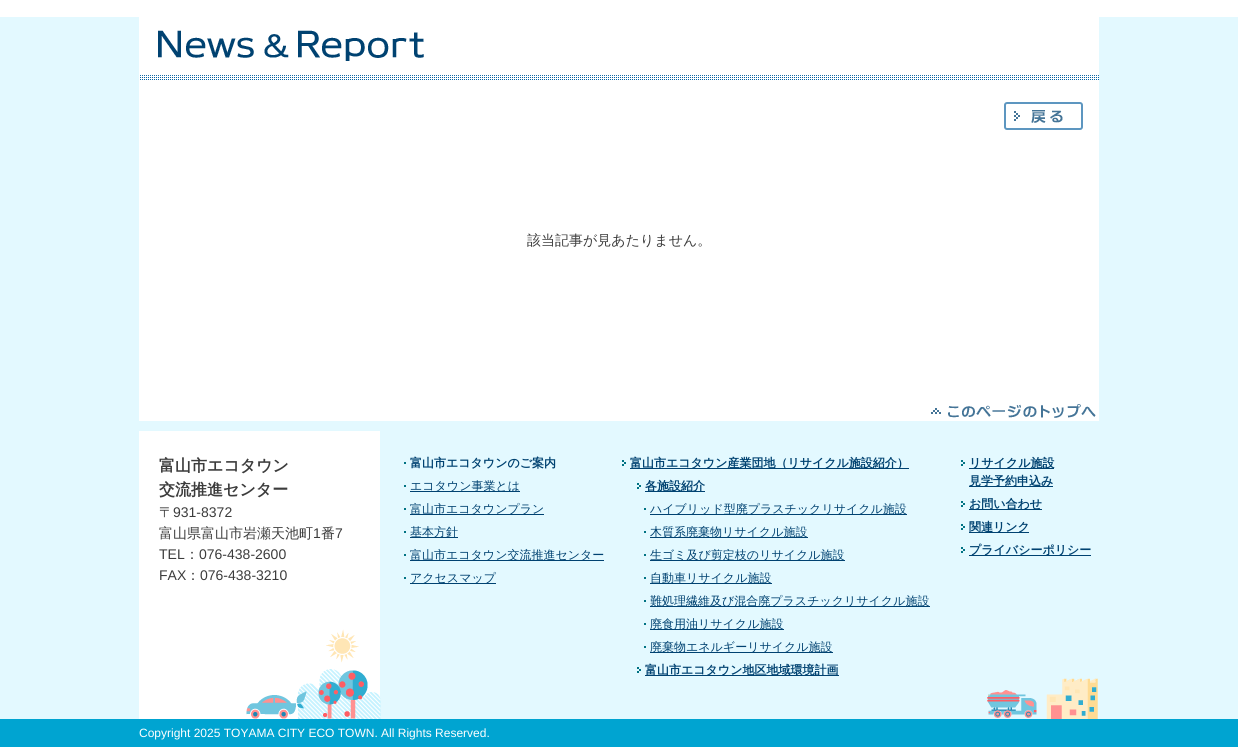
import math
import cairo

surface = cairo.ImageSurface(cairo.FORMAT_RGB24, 1238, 747)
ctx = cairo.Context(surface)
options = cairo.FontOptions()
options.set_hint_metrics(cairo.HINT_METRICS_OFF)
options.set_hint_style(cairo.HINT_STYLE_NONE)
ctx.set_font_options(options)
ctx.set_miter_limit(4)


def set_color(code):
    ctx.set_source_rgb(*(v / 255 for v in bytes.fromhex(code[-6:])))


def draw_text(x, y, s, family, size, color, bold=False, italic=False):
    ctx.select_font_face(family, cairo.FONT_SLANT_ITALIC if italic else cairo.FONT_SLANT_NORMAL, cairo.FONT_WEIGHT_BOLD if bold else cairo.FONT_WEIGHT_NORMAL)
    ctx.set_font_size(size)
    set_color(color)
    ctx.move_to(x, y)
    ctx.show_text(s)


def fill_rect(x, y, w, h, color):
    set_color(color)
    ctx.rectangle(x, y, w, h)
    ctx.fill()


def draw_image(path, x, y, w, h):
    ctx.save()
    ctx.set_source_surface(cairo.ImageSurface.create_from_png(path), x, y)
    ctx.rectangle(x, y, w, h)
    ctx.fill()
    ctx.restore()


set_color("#ffffff")
ctx.paint()
fill_rect(0, 17, 1238, 702, "#e3f9ff")
fill_rect(139, 17, 960, 404, "#ffffff")
draw_image("assets/img1.png", 140, 30, 959, 50)
draw_image("assets/img2.png", 1004, 102, 79, 28)
draw_text(527, 245, "該当記事が見あたりません。", "WenQuanYi Zen Hei Medium", 14, "#3c3c3c")
draw_image("assets/img3.png", 931, 404, 165, 14)
draw_image("assets/img4.png", 139, 431, 959, 288)
draw_text(159, 471, "富山市エコタウン", "WenQuanYi Zen Hei", 16, "#3c3c3c", bold=True)
draw_text(159, 495, "交流推進センター", "WenQuanYi Zen Hei", 16, "#3c3c3c", bold=True)
draw_text(159, 517, "〒", "WenQuanYi Zen Hei Medium", 14, "#3c3c3c")
draw_text(173, 517, "931-8372", "Liberation Sans", 14, "#3c3c3c")
draw_text(159, 538, "富山県富山市岩瀬天池町", "WenQuanYi Zen Hei Medium", 14, "#3c3c3c")
draw_text(313, 538, "1", "Liberation Sans", 14, "#3c3c3c")
draw_text(321, 538, "番", "WenQuanYi Zen Hei Medium", 14, "#3c3c3c")
draw_text(335, 538, "7", "Liberation Sans", 14, "#3c3c3c")
draw_text(159, 559, "TEL", "Liberation Sans", 14, "#3c3c3c")
draw_text(185, 559, "：", "WenQuanYi Zen Hei Medium", 14, "#3c3c3c")
draw_text(199, 559, "076-438-2600", "Liberation Sans", 14, "#3c3c3c")
draw_text(159, 580, "FAX", "Liberation Sans", 14, "#3c3c3c")
draw_text(186, 580, "：", "WenQuanYi Zen Hei Medium", 14, "#3c3c3c")
draw_text(200, 580, "076-438-3210", "Liberation Sans", 14, "#3c3c3c")
fill_rect(404, 462, 2, 2, "#007383")
draw_text(410, 467, "富山市エコタウンのご案内", "WenQuanYi Zen Hei", 12, "#004271", bold=True)
fill_rect(404, 485, 2, 2, "#007383")
fill_rect(410, 491, 110, 1, "#004271")
draw_text(410, 490, "エコタウン事業とは", "WenQuanYi Zen Hei Medium", 12, "#004271")
fill_rect(404, 508, 2, 2, "#007383")
fill_rect(410, 514, 134, 1, "#004271")
draw_text(410, 513, "富山市エコタウンプラン", "WenQuanYi Zen Hei Medium", 12, "#004271")
fill_rect(404, 531, 2, 2, "#007383")
fill_rect(410, 537, 48, 1, "#004271")
draw_text(410, 536, "基本方針", "WenQuanYi Zen Hei Medium", 12, "#004271")
fill_rect(404, 554, 2, 2, "#007383")
fill_rect(410, 560, 194, 1, "#004271")
draw_text(410, 559, "富山市エコタウン交流推進センター", "WenQuanYi Zen Hei Medium", 12, "#004271")
fill_rect(404, 577, 2, 2, "#007383")
fill_rect(410, 583, 86, 1, "#004271")
draw_text(410, 582, "アクセスマップ", "WenQuanYi Zen Hei Medium", 12, "#004271")
draw_image("assets/img5.png", 622, 460, 4, 6)
fill_rect(630, 468, 279, 1, "#004271")
draw_text(630, 467, "富山市エコタウン産業団地（リサイクル施設紹介）", "WenQuanYi Zen Hei", 12, "#004271", bold=True)
draw_image("assets/img5.png", 637, 483, 4, 6)
fill_rect(645, 491, 60, 1, "#004271")
draw_text(645, 490, "各施設紹介", "WenQuanYi Zen Hei", 12, "#004271", bold=True)
fill_rect(644, 508, 2, 2, "#007383")
fill_rect(650, 514, 257, 1, "#004271")
draw_text(650, 513, "ハイブリッド型廃プラスチックリサイクル施設", "WenQuanYi Zen Hei Medium", 12, "#004271")
fill_rect(644, 531, 2, 2, "#007383")
fill_rect(650, 537, 158, 1, "#004271")
draw_text(650, 536, "木質系廃棄物リサイクル施設", "WenQuanYi Zen Hei Medium", 12, "#004271")
fill_rect(644, 554, 2, 2, "#007383")
fill_rect(650, 560, 195, 1, "#004271")
draw_text(650, 559, "生ゴミ及び剪定枝のリサイクル施設", "WenQuanYi Zen Hei Medium", 12, "#004271")
fill_rect(644, 577, 2, 2, "#007383")
fill_rect(650, 583, 122, 1, "#004271")
draw_text(650, 582, "自動車リサイクル施設", "WenQuanYi Zen Hei Medium", 12, "#004271")
fill_rect(644, 600, 2, 2, "#007383")
fill_rect(650, 606, 280, 1, "#004271")
draw_text(650, 605, "難処理繊維及び混合廃プラスチックリサイクル施設", "WenQuanYi Zen Hei Medium", 12, "#004271")
fill_rect(644, 623, 2, 2, "#007383")
fill_rect(650, 629, 134, 1, "#004271")
draw_text(650, 628, "廃食用油リサイクル施設", "WenQuanYi Zen Hei Medium", 12, "#004271")
fill_rect(644, 646, 2, 2, "#007383")
fill_rect(650, 652, 183, 1, "#004271")
draw_text(650, 651, "廃棄物エネルギーリサイクル施設", "WenQuanYi Zen Hei Medium", 12, "#004271")
draw_image("assets/img5.png", 637, 667, 4, 6)
fill_rect(645, 675, 194, 1, "#004271")
draw_text(645, 674, "富山市エコタウン地区地域環境計画", "WenQuanYi Zen Hei", 12, "#004271", bold=True)
draw_image("assets/img5.png", 961, 460, 4, 6)
fill_rect(969, 468, 85, 1, "#004271")
draw_text(969, 467, "リサイクル施設", "WenQuanYi Zen Hei", 12, "#004271", bold=True)
fill_rect(969, 486, 84, 1, "#004271")
draw_text(969, 485, "見学予約申込み", "WenQuanYi Zen Hei", 12, "#004271", bold=True)
draw_image("assets/img5.png", 961, 501, 4, 6)
fill_rect(969, 509, 73, 1, "#004271")
draw_text(969, 508, "お問い合わせ", "WenQuanYi Zen Hei", 12, "#004271", bold=True)
draw_image("assets/img5.png", 961, 524, 4, 6)
fill_rect(969, 532, 60, 1, "#004271")
draw_text(969, 531, "関連リンク", "WenQuanYi Zen Hei", 12, "#004271", bold=True)
draw_image("assets/img5.png", 961, 547, 4, 6)
fill_rect(969, 555, 122, 1, "#004271")
draw_text(969, 554, "プライバシーポリシー", "WenQuanYi Zen Hei", 12, "#004271", bold=True)
fill_rect(0, 719, 1238, 28, "#00a4d1")
draw_text(139, 737, "Copyright 2025 TOYAMA CITY ECO TOWN. All Rights Reserved.", "Liberation Sans", 12, "#ffffff")
surface.write_to_png("output.png")
